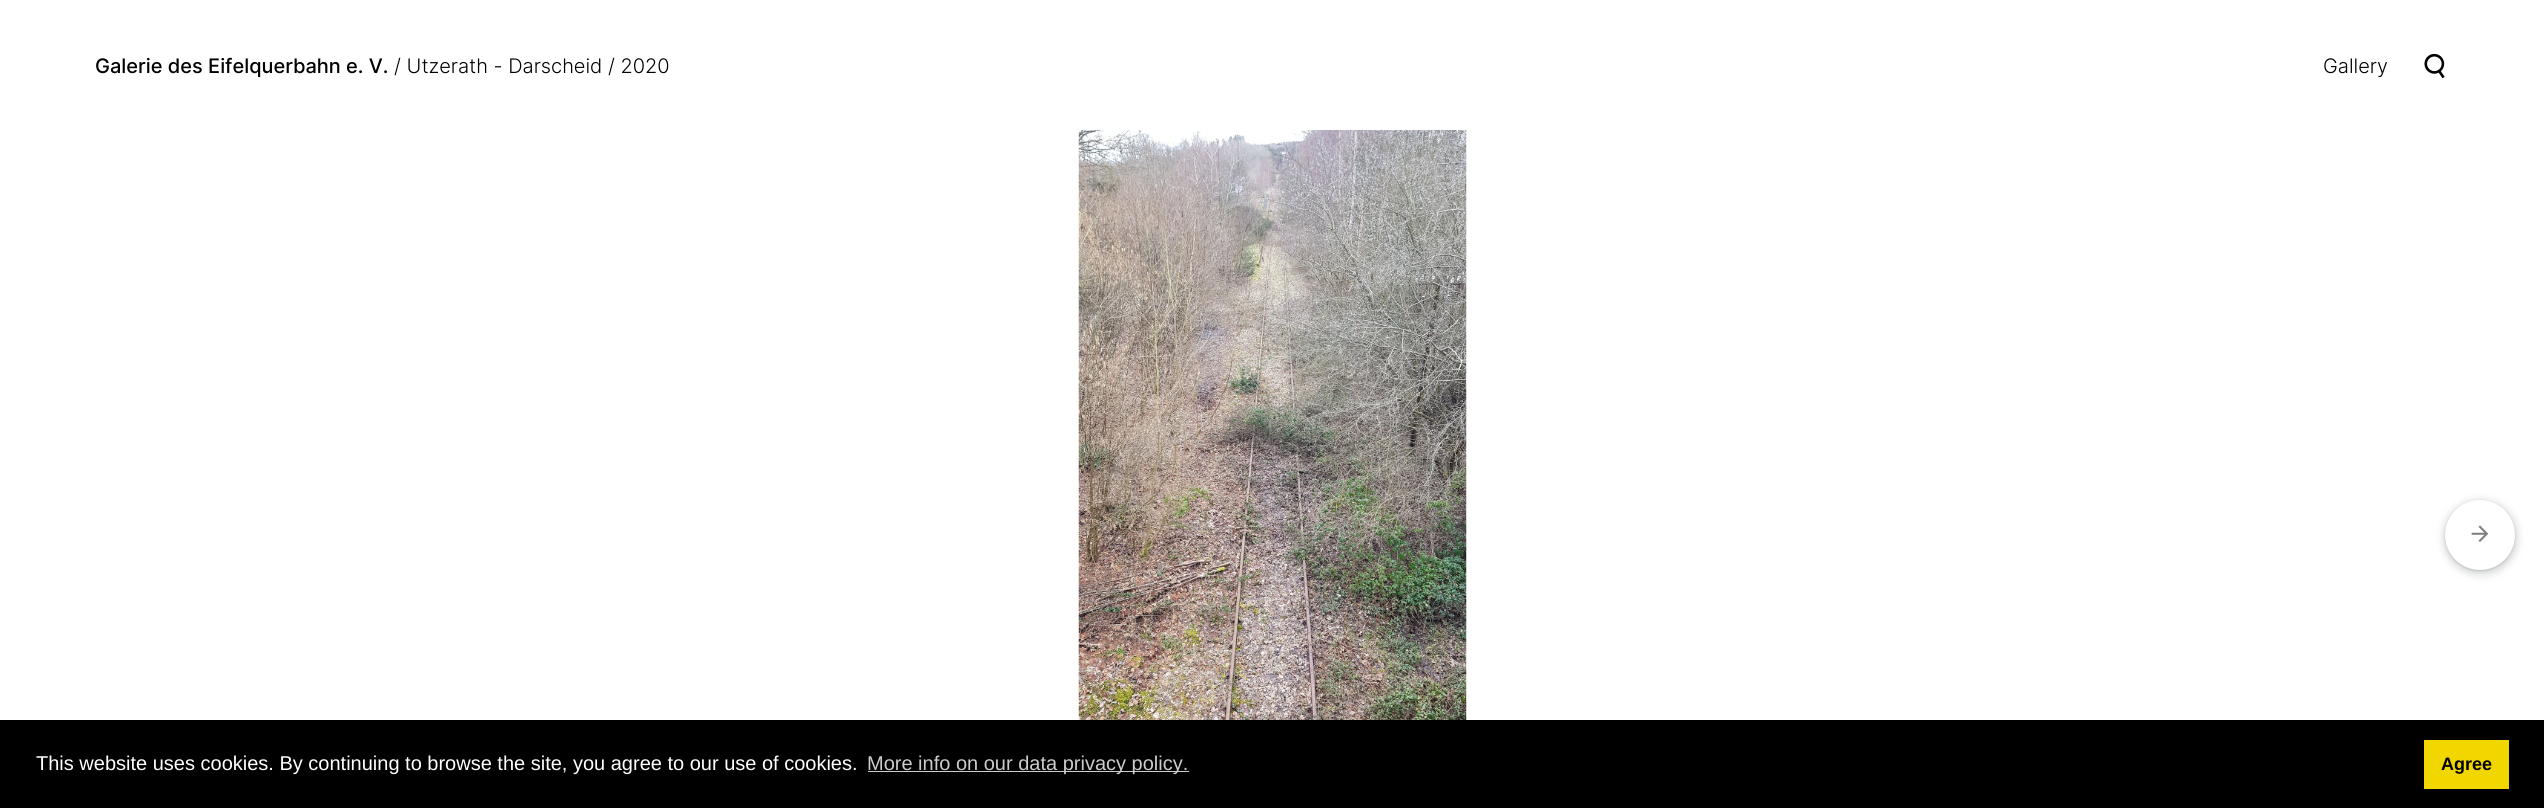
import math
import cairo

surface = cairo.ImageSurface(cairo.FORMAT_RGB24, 2544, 808)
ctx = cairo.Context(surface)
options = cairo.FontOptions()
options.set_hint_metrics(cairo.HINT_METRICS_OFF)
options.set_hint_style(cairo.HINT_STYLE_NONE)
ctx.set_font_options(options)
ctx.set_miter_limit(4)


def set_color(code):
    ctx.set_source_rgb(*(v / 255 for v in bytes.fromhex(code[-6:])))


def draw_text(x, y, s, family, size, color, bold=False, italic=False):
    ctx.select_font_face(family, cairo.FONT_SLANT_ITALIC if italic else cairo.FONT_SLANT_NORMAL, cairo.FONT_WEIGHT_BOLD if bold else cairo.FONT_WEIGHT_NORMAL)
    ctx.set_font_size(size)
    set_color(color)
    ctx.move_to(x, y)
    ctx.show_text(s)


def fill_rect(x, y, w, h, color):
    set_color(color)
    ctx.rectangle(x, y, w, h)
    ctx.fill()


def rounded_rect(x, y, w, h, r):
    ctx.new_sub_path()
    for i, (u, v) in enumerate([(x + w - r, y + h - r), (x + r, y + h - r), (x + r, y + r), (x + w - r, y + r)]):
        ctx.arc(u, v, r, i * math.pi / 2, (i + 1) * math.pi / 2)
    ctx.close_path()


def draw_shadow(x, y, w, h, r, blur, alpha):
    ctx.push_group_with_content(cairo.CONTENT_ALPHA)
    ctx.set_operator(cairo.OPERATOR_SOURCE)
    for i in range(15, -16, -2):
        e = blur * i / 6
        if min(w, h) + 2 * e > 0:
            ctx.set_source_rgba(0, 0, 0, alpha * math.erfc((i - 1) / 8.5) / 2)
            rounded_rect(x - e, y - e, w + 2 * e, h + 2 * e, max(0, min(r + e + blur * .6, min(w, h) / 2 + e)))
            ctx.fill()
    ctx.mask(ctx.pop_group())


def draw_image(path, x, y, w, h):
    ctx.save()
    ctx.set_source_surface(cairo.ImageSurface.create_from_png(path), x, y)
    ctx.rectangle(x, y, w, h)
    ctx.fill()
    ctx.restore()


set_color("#ffffff")
ctx.paint()
draw_text(95, 73, "Galerie des Eifelquerbahn e. V.", "Inter Medium", 20, "#000000")
draw_text(394, 73, "/ Utzerath - Darscheid / 2020", "Inter Light", 20, "#000000")
draw_text(2323, 73, "Gallery", "Inter Light", 20, "#000000")
draw_image("assets/img1.png", 2424, 53, 21, 26)
draw_image("assets/img2.png", 1078, 130, 389, 590)
set_color("#3c4043")
draw_shadow(2443, 500, 75, 75, 37.5, 4, 0.2)
draw_shadow(2445, 501, 70, 70, 35, 1, 0.2)
set_color("#ffffff")
ctx.arc(2480, 535, 35, 0, 2 * math.pi)
ctx.fill()
draw_image("assets/img3.png", 2471, 525, 18, 17)
fill_rect(0, 720, 2544, 88, "#000000")
draw_text(36, 770, "This website uses cookies. By continuing to browse the site, you agree to our use of cookies.", "Liberation Sans", 20, "#ffffff")
fill_rect(868, 771, 321, 1, "#cccccc")
draw_text(867, 770, "More info on our data privacy policy.", "Liberation Sans", 20, "#cccccc")
fill_rect(2424, 740, 85, 49, "#f1d600")
draw_text(2441, 770, "Agree", "Liberation Sans", 18, "#000000", bold=True)
surface.write_to_png("output.png")
